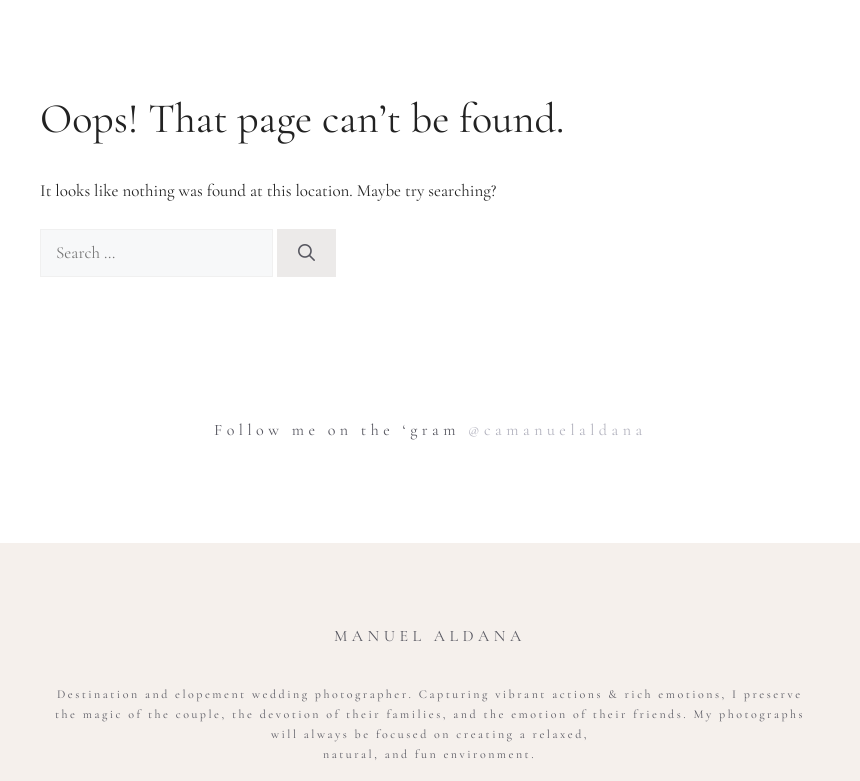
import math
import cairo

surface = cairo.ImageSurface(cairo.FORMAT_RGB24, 860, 781)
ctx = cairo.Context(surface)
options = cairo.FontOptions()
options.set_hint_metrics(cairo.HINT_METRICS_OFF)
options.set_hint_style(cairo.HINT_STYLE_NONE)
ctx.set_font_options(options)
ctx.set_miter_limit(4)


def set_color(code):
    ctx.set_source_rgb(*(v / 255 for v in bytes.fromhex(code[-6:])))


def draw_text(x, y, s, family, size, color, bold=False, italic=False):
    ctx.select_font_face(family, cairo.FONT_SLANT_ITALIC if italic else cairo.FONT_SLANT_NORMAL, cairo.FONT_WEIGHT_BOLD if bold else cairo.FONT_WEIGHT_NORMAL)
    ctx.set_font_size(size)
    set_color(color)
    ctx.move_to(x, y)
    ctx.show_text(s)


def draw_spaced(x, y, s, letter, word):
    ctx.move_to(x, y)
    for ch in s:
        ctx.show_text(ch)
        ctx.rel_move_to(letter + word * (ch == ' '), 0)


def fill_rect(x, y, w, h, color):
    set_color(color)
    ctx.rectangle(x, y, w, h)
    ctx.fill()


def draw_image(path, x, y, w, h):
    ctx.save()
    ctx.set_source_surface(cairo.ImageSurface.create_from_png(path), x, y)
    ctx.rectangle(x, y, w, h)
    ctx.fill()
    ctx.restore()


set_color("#ffffff")
ctx.paint()
draw_text(40, 132, "Oops! That page can’t be found.", "Cormorant Garamond", 42, "#222222")
draw_text(40, 196, "It looks like nothing was found at this location. Maybe try searching?", "Cormorant Garamond", 17, "#222222")
set_color("#f7f8f9")
ctx.rectangle(40.5, 229.5, 232, 47)
ctx.fill_preserve()
set_color("#f0f0f0")
ctx.set_line_width(1)
ctx.stroke()
draw_text(56, 258, "Search …", "Cormorant Garamond", 17, "#757575")
fill_rect(277, 229, 59, 48, "#eceae9")
draw_image("assets/img1.png", 298, 244, 17, 17)
ctx.set_font_size(16)
set_color("#575760")
draw_spaced(214, 435, "Follow me on the ‘gram", 4.5, 0)
set_color("#b2b2be")
draw_spaced(468, 435, "@camanuelaldana", 4.5, 0)
fill_rect(0, 543, 860, 238, "#f5f0ec")
set_color("#575760")
draw_spaced(334, 641, "MANUEL ALDANA", 4.5, 0)
ctx.set_font_size(12)
draw_spaced(57, 698, "Destination and elopement wedding photographer. Capturing vibrant actions & rich emotions, I preserve", 2.5, 0)
draw_spaced(55, 718, "the magic of the couple, the devotion of their families, and the emotion of their friends. My photographs", 2.5, 0)
draw_spaced(271, 738, "will always be focused on creating a relaxed,", 2.5, 0)
draw_spaced(323, 758, "natural, and fun environment.", 2.5, 0)
surface.write_to_png("output.png")
